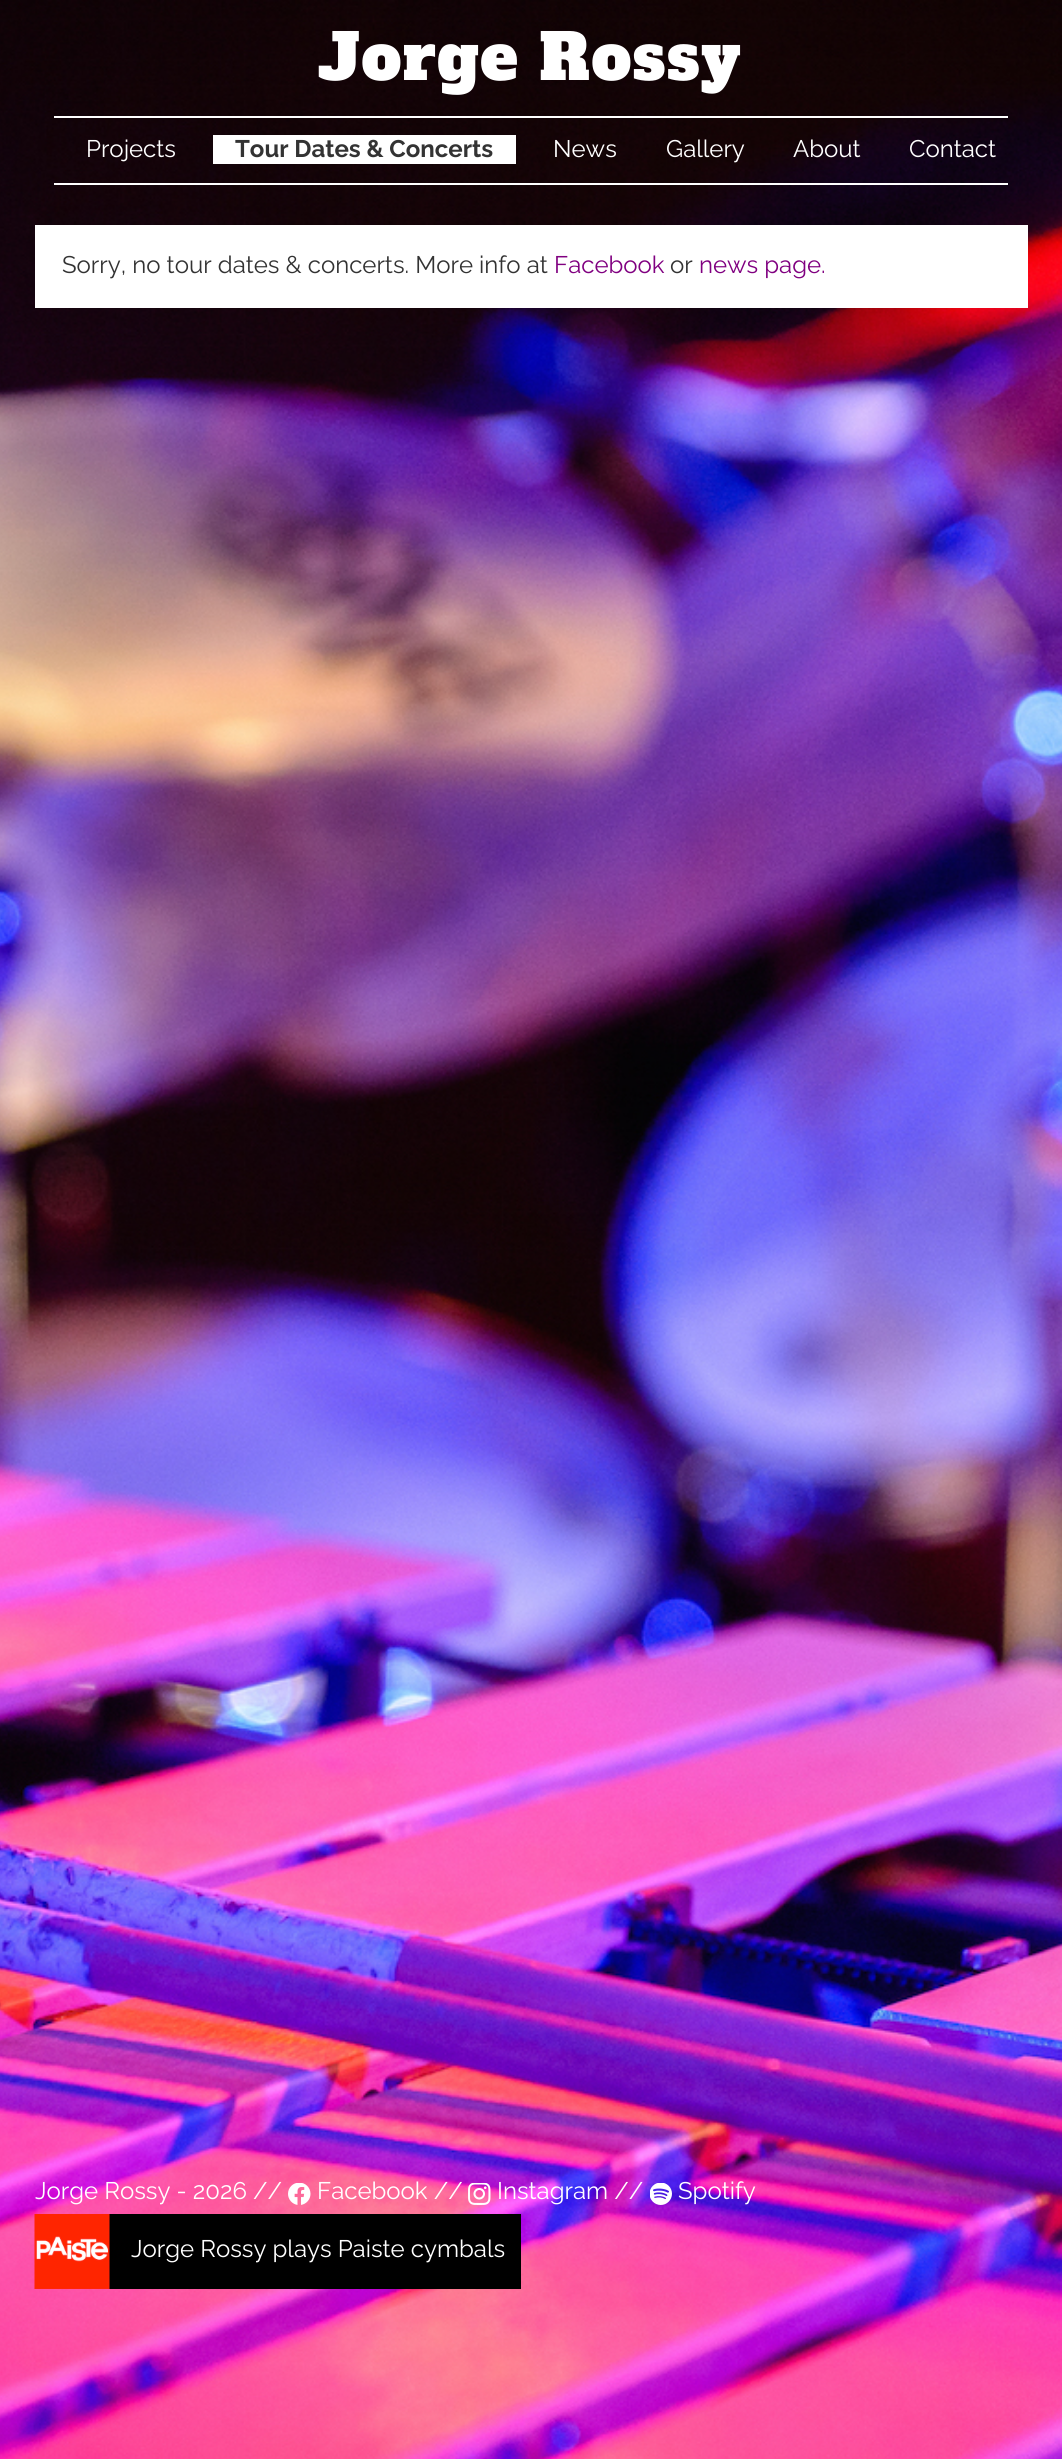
import math
import cairo

surface = cairo.ImageSurface(cairo.FORMAT_RGB24, 1062, 2459)
ctx = cairo.Context(surface)
options = cairo.FontOptions()
options.set_hint_metrics(cairo.HINT_METRICS_OFF)
options.set_hint_style(cairo.HINT_STYLE_NONE)
ctx.set_font_options(options)
ctx.set_miter_limit(4)


def set_color(code):
    ctx.set_source_rgb(*(v / 255 for v in bytes.fromhex(code[-6:])))


def draw_text(x, y, s, family, size, color, bold=False, italic=False):
    ctx.select_font_face(family, cairo.FONT_SLANT_ITALIC if italic else cairo.FONT_SLANT_NORMAL, cairo.FONT_WEIGHT_BOLD if bold else cairo.FONT_WEIGHT_NORMAL)
    ctx.set_font_size(size)
    set_color(color)
    ctx.move_to(x, y)
    ctx.show_text(s)


def draw_spaced(x, y, s, letter, word):
    ctx.move_to(x, y)
    for ch in s:
        ctx.show_text(ch)
        ctx.rel_move_to(letter + word * (ch == ' '), 0)


def fill_rect(x, y, w, h, color):
    set_color(color)
    ctx.rectangle(x, y, w, h)
    ctx.fill()


def draw_image(path, x, y, w, h):
    ctx.save()
    ctx.set_source_surface(cairo.ImageSurface.create_from_png(path), x, y)
    ctx.rectangle(x, y, w, h)
    ctx.fill()
    ctx.restore()


set_color("#ffffff")
ctx.paint()
draw_image("assets/img1.png", 0, 0, 1062, 2459)
ctx.select_font_face("Alfa Slab One")
ctx.set_font_size(63)
set_color("#ffffff")
draw_spaced(318, 80, "Jorge Rossy", 1.5, 0)
fill_rect(54, 116, 954, 2, "#ffffff")
fill_rect(54, 183, 954, 2, "#ffffff")
draw_text(86, 157, "Projects", "Raleway", 24, "#ffffff")
fill_rect(213, 135, 303, 29, "#ffffff")
draw_text(235, 157, "Tour Dates & Concerts", "Raleway", 24, "#333333", bold=True)
draw_text(553, 157, "News", "Raleway", 24, "#ffffff")
draw_text(666, 157, "Gallery", "Raleway", 24, "#ffffff")
draw_text(793, 157, "About", "Raleway", 24, "#ffffff")
draw_text(909, 157, "Contact", "Raleway", 24, "#ffffff")
fill_rect(35, 225, 993, 83, "#ffffff")
draw_text(62, 273, "Sorry, no tour dates & concerts. More info at", "Raleway", 24, "#333333")
draw_text(554, 273, "Facebook", "Raleway", 24, "#800080")
draw_text(670, 273, "or", "Raleway", 24, "#333333")
draw_text(699, 273, "news page.", "Raleway", 24, "#800080")
draw_text(35, 2199, "Jorge Rossy - 2026 //", "Raleway", 24, "#ffffff")
draw_image("assets/img2.png", 288, 2183, 23, 22)
draw_text(317, 2199, "Facebook //", "Raleway", 24, "#ffffff")
draw_image("assets/img3.png", 468, 2183, 23, 22)
draw_text(497, 2199, "Instagram //", "Raleway", 24, "#ffffff")
draw_image("assets/img4.png", 650, 2183, 22, 22)
draw_text(678, 2199, "Spotify", "Raleway", 24, "#ffffff")
fill_rect(109, 2214, 412, 75, "#000000")
draw_image("assets/img5.png", 34, 2214, 76, 75)
draw_text(131, 2257, "Jorge Rossy plays Paiste cymbals", "Raleway", 24, "#ffffff")
surface.write_to_png("output.png")
